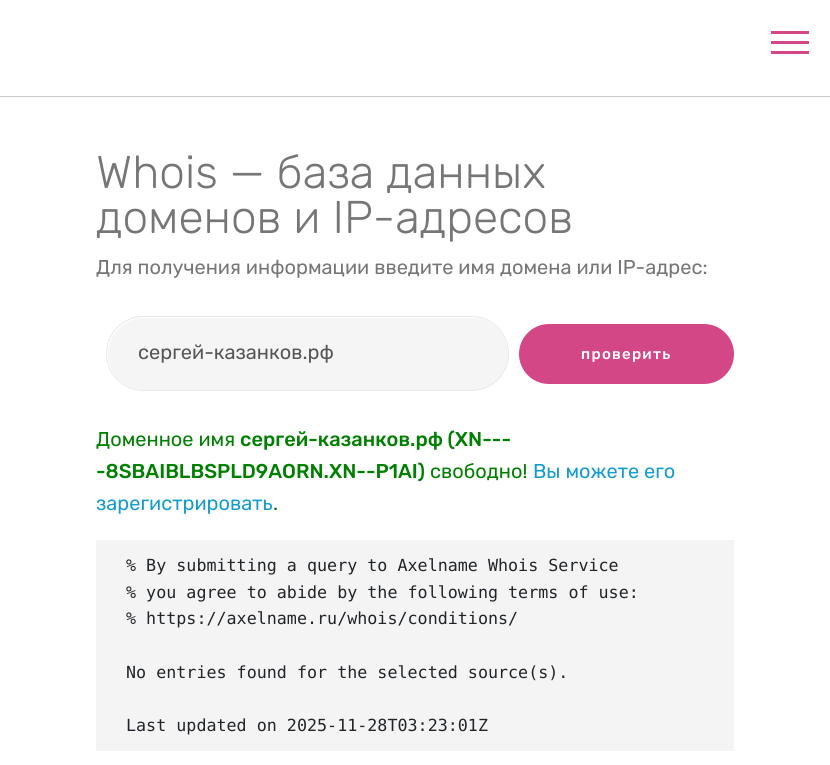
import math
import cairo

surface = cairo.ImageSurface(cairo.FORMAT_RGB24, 830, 765)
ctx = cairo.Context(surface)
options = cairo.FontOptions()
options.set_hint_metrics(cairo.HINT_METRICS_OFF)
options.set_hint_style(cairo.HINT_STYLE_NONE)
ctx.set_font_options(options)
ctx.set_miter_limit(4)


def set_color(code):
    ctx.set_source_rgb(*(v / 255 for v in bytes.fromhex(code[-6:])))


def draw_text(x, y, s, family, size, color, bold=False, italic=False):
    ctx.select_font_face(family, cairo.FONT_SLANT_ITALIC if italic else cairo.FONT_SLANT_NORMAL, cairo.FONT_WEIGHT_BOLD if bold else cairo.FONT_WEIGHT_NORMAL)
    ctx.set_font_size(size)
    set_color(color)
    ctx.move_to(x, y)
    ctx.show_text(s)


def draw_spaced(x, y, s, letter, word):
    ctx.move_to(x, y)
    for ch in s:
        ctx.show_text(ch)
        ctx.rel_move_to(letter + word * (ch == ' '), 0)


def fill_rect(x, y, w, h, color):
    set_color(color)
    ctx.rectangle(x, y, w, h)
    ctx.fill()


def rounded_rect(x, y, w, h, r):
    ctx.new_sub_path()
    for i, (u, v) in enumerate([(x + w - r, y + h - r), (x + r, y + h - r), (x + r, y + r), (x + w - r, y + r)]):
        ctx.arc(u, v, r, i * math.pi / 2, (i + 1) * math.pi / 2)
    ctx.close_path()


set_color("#ffffff")
ctx.paint()
fill_rect(0, 96, 830, 1, "#cccccc")
fill_rect(771, 31, 38, 3, "#d34786")
fill_rect(771, 41, 38, 3, "#d34786")
fill_rect(771, 51, 38, 3, "#d34786")
draw_text(96, 188, "Whois — база данных", "Rubik Light", 45.9, "#767676")
draw_text(96, 233, "доменов и IP-адресов", "Rubik Light", 45.9, "#767676")
draw_text(96, 274, "Для получения информации введите имя домена или IP-адрес:", "Rubik", 20, "#767676")
set_color("#f5f5f5")
rounded_rect(108, 318, 400, 72, 36)
ctx.fill()
rounded_rect(106.5, 316.5, 402, 74, 37)
set_color("#e8e8e8")
ctx.set_line_width(1)
ctx.stroke()
draw_text(138, 359, "сергей-казанков.рф", "Rubik", 20, "#565656")
set_color("#d34786")
rounded_rect(520.5, 325.5, 212, 57, 28.5)
ctx.fill_preserve()
ctx.set_line_width(3)
ctx.stroke()
ctx.select_font_face("Rubik Medium")
ctx.set_font_size(15)
set_color("#ffffff")
draw_spaced(581, 359, "проверить", 1.25, 0)
draw_text(96, 446, "Доменное имя", "Rubik", 20, "#008000")
draw_text(240, 446, "сергей-казанков.рф (XN---", "Rubik Medium", 20, "#008000")
draw_text(96, 478, "-8SBAIBLBSPLD9AORN.XN--P1AI)", "Rubik Medium", 20, "#008000")
draw_text(430, 478, "свободно!", "Rubik", 20, "#008000")
draw_text(533, 478, "Вы можете его", "Rubik", 20, "#149dcc")
draw_text(96, 510, "зарегистрировать", "Rubik", 20, "#149dcc")
draw_text(273, 510, ".", "Rubik", 20, "#008000")
fill_rect(96, 540, 638, 211, "#f4f4f4")
draw_text(126, 571, "% By submitting a query to Axelname Whois Service", "DejaVu Sans Mono", 16.7, "#212529")
draw_text(126, 598, "% you agree to abide by the following terms of use:", "DejaVu Sans Mono", 16.7, "#212529")
draw_text(126, 624, "% https://axelname.ru/whois/conditions/", "DejaVu Sans Mono", 16.7, "#212529")
draw_text(126, 678, "No entries found for the selected source(s).", "DejaVu Sans Mono", 16.7, "#212529")
draw_text(126, 731, "Last updated on 2025-11-28T03:23:01Z", "DejaVu Sans Mono", 16.7, "#212529")
surface.write_to_png("output.png")
